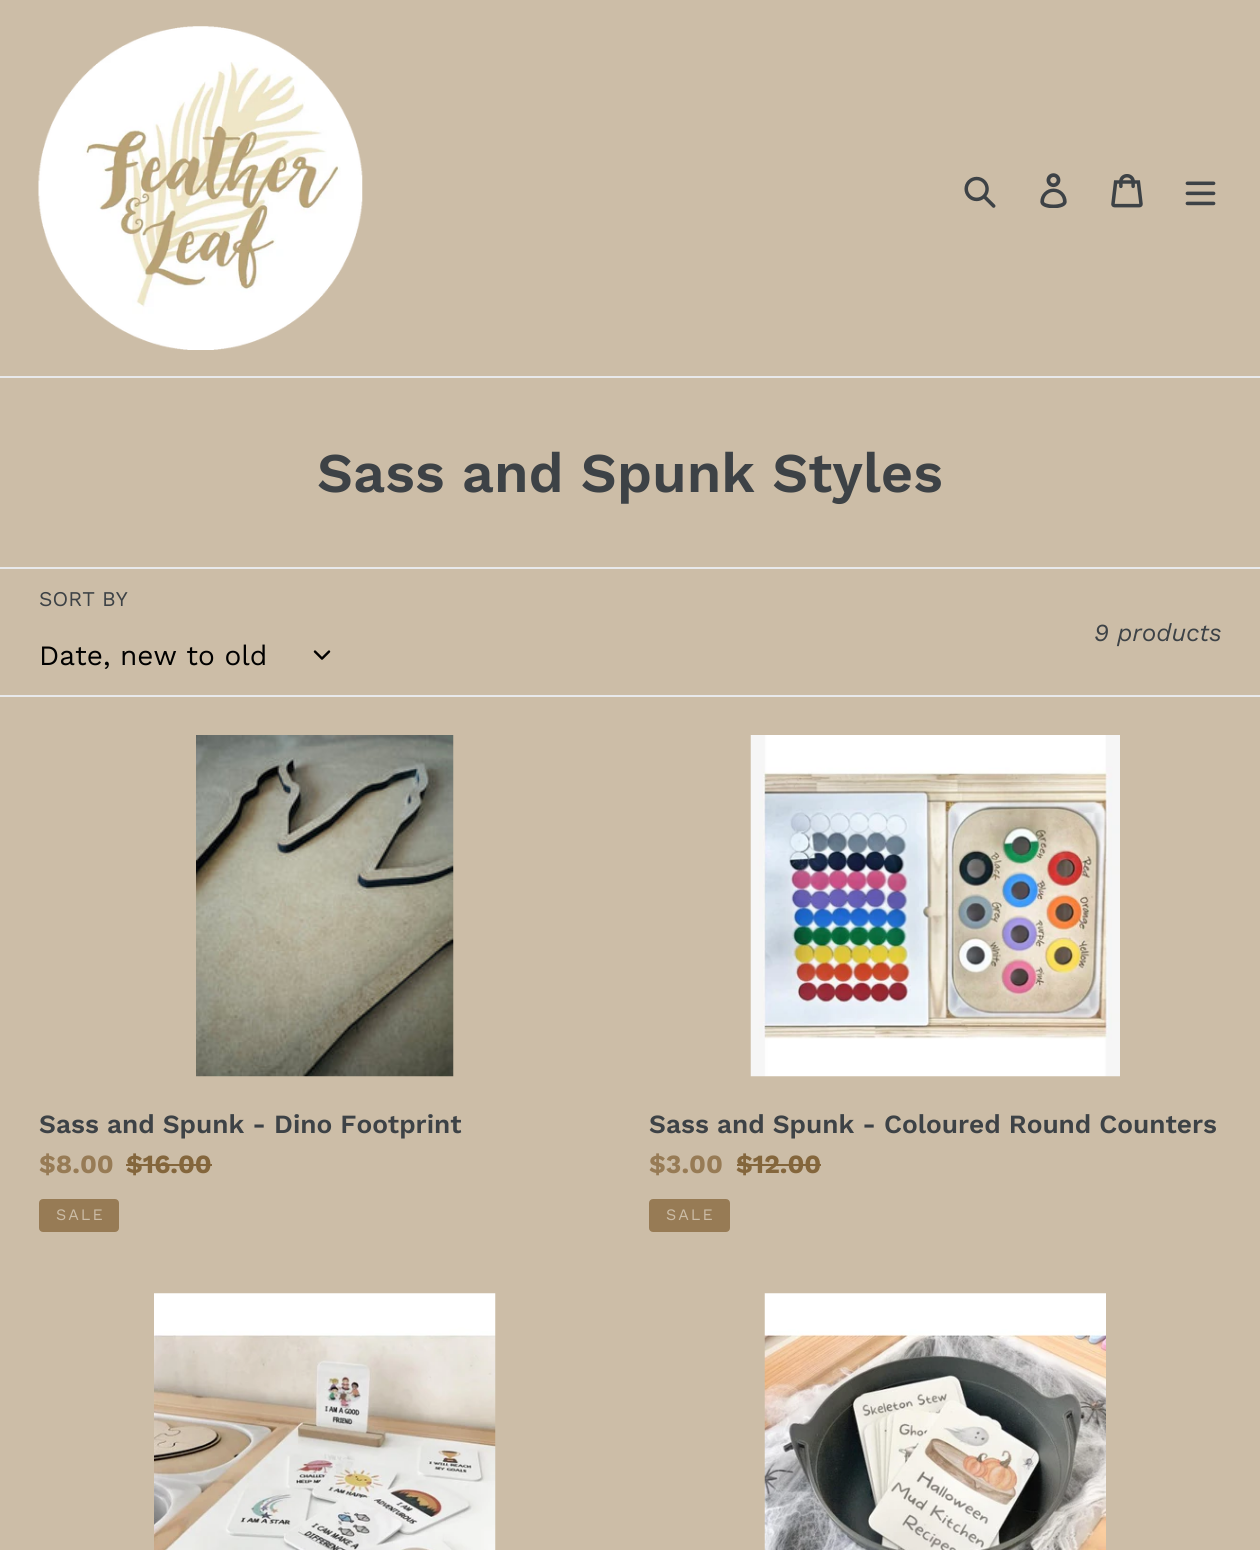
import math
import cairo

surface = cairo.ImageSurface(cairo.FORMAT_RGB24, 1260, 1550)
ctx = cairo.Context(surface)
options = cairo.FontOptions()
options.set_hint_metrics(cairo.HINT_METRICS_OFF)
options.set_hint_style(cairo.HINT_STYLE_NONE)
ctx.set_font_options(options)
ctx.set_miter_limit(4)


def set_color(code):
    ctx.set_source_rgb(*(v / 255 for v in bytes.fromhex(code[-6:])))


def draw_text(x, y, s, family, size, color, bold=False, italic=False):
    ctx.select_font_face(family, cairo.FONT_SLANT_ITALIC if italic else cairo.FONT_SLANT_NORMAL, cairo.FONT_WEIGHT_BOLD if bold else cairo.FONT_WEIGHT_NORMAL)
    ctx.set_font_size(size)
    set_color(color)
    ctx.move_to(x, y)
    ctx.show_text(s)


def draw_spaced(x, y, s, letter, word):
    ctx.move_to(x, y)
    for ch in s:
        ctx.show_text(ch)
        ctx.rel_move_to(letter + word * (ch == ' '), 0)


def fill_rect(x, y, w, h, color):
    set_color(color)
    ctx.rectangle(x, y, w, h)
    ctx.fill()


def rounded_rect(x, y, w, h, r):
    ctx.new_sub_path()
    for i, (u, v) in enumerate([(x + w - r, y + h - r), (x + r, y + h - r), (x + r, y + r), (x + w - r, y + r)]):
        ctx.arc(u, v, r, i * math.pi / 2, (i + 1) * math.pi / 2)
    ctx.close_path()


def draw_image(path, x, y, w, h):
    ctx.save()
    ctx.set_source_surface(cairo.ImageSurface.create_from_png(path), x, y)
    ctx.rectangle(x, y, w, h)
    ctx.fill()
    ctx.restore()


set_color("#ccbda7")
ctx.paint()
fill_rect(0, 376, 1260, 2, "#e8e9eb")
draw_image("assets/img1.png", 38, 26, 325, 324)
draw_image("assets/img2.png", 964, 176, 32, 32)
draw_image("assets/img3.png", 1040, 173, 27, 35)
draw_image("assets/img4.png", 1111, 174, 32, 34)
draw_image("assets/img5.png", 1185, 181, 31, 25)
draw_text(317, 492, "Sass and Spunk Styles", "Work Sans SemiBold", 56, "#3d4246")
fill_rect(0, 567, 1260, 2, "#e8e9eb")
fill_rect(0, 695, 1260, 2, "#e8e9eb")
draw_text(39, 606, "SORT BY", "Work Sans", 21, "#3d4246")
draw_text(39, 665, "Date, new to old", "Work Sans", 28, "#000000")
draw_image("assets/img6.png", 313, 650, 18, 10)
draw_text(1094, 641, "9 products", "Work Sans", 24.5, "#3d4246", italic=True)
draw_image("assets/img7.png", 196, 735, 258, 342)
draw_text(39, 1133, "Sass and Spunk - Dino Footprint", "Work Sans SemiBold", 26.25, "#3d4246")
draw_text(39, 1173, "$8.00", "Work Sans", 26.25, "#977b55", bold=True)
draw_text(126, 1173, "$16.00", "Work Sans", 26.25, "#84663c", bold=True)
fill_rect(126, 1164, 86, 2, "#84663c")
set_color("#977b55")
rounded_rect(40, 1200, 78, 31, 3)
ctx.fill_preserve()
ctx.stroke()
ctx.select_font_face("Work Sans")
ctx.set_font_size(16)
set_color("#ccbda7")
draw_spaced(56, 1220, "SALE", 2, 0)
draw_image("assets/img8.png", 750, 735, 370, 342)
draw_text(649, 1133, "Sass and Spunk - Coloured Round Counters", "Work Sans SemiBold", 26.25, "#3d4246")
draw_text(649, 1173, "$3.00", "Work Sans", 26.25, "#977b55", bold=True)
draw_text(736, 1173, "$12.00", "Work Sans", 26.25, "#84663c", bold=True)
fill_rect(737, 1164, 84, 2, "#84663c")
set_color("#977b55")
rounded_rect(650, 1200, 79, 31, 3)
ctx.fill_preserve()
ctx.stroke()
ctx.select_font_face("Work Sans")
ctx.set_font_size(16)
set_color("#ccbda7")
draw_spaced(666, 1220, "SALE", 2, 0)
draw_image("assets/img9.png", 154, 1293, 342, 257)
draw_image("assets/img10.png", 764, 1293, 342, 257)
surface.write_to_png("output.png")
